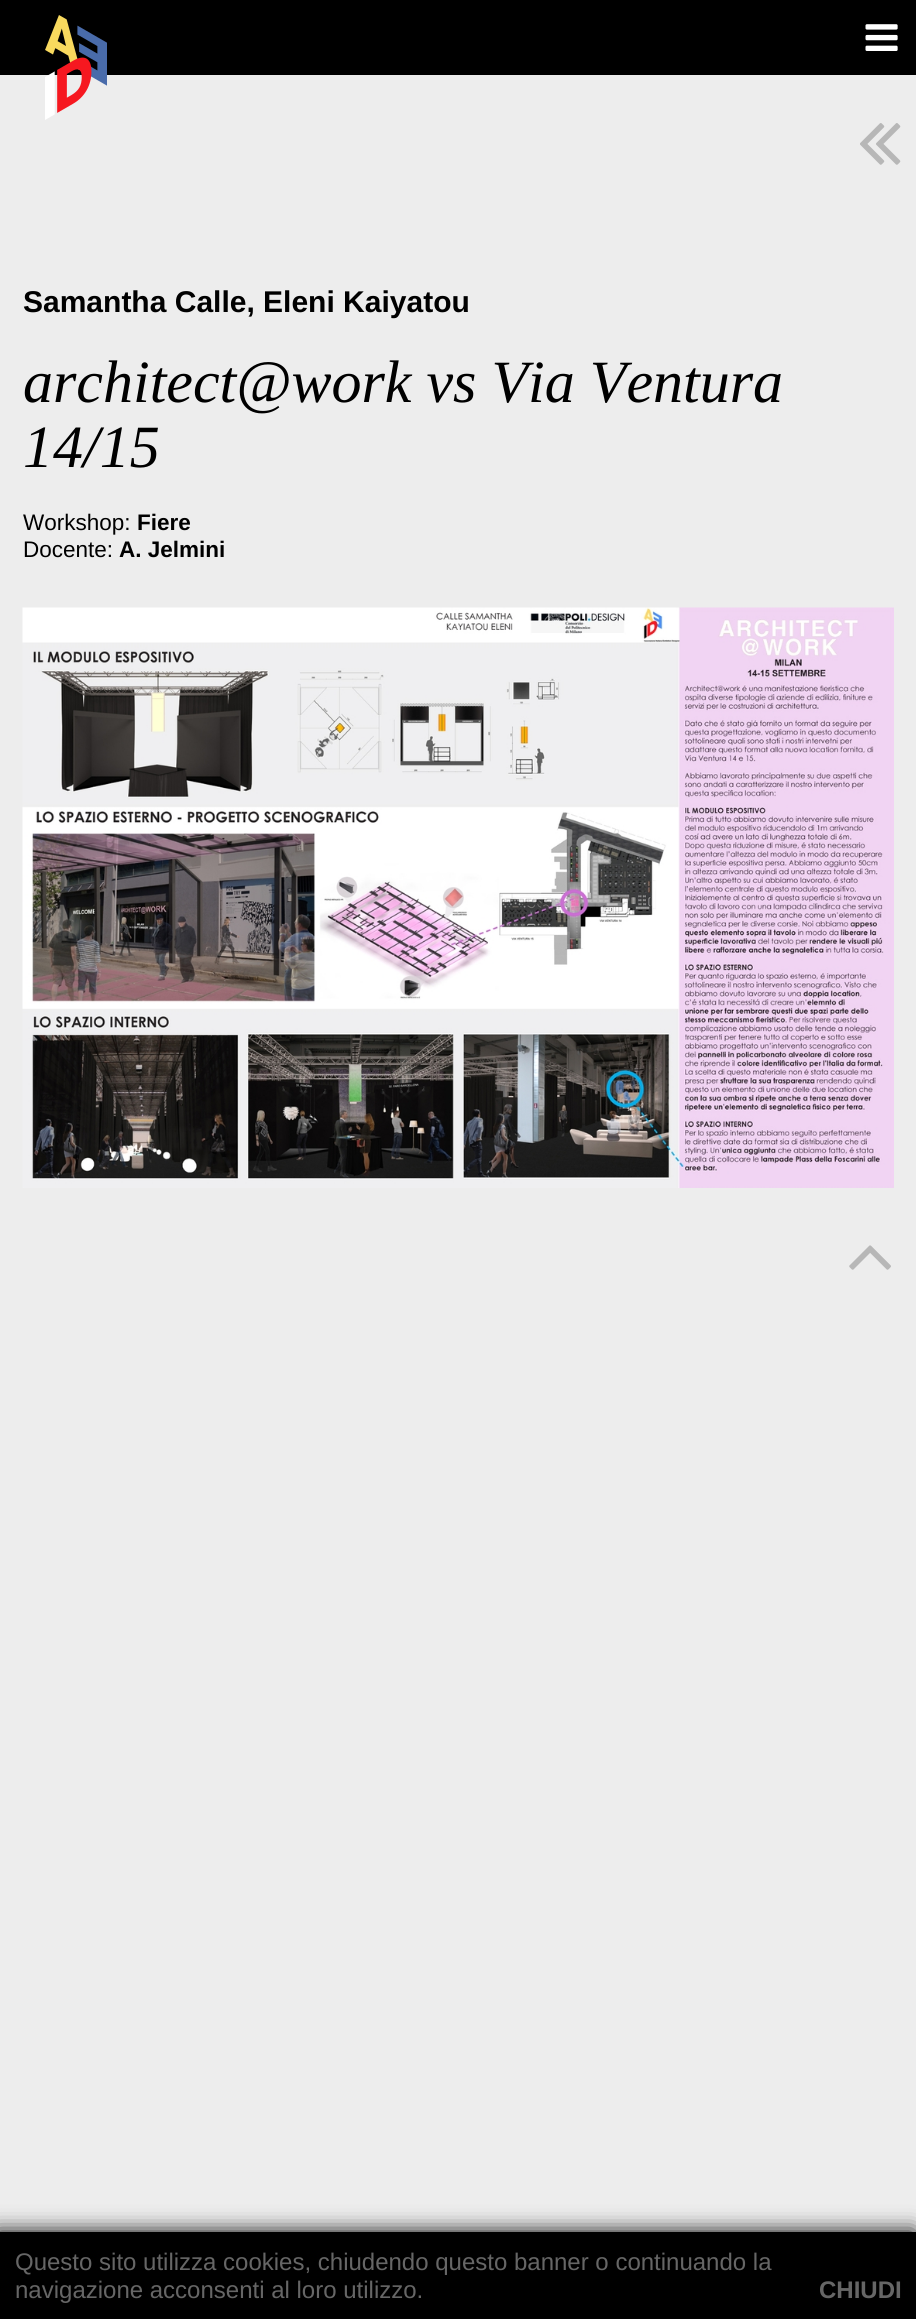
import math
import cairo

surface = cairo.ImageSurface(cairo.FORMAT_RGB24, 916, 2319)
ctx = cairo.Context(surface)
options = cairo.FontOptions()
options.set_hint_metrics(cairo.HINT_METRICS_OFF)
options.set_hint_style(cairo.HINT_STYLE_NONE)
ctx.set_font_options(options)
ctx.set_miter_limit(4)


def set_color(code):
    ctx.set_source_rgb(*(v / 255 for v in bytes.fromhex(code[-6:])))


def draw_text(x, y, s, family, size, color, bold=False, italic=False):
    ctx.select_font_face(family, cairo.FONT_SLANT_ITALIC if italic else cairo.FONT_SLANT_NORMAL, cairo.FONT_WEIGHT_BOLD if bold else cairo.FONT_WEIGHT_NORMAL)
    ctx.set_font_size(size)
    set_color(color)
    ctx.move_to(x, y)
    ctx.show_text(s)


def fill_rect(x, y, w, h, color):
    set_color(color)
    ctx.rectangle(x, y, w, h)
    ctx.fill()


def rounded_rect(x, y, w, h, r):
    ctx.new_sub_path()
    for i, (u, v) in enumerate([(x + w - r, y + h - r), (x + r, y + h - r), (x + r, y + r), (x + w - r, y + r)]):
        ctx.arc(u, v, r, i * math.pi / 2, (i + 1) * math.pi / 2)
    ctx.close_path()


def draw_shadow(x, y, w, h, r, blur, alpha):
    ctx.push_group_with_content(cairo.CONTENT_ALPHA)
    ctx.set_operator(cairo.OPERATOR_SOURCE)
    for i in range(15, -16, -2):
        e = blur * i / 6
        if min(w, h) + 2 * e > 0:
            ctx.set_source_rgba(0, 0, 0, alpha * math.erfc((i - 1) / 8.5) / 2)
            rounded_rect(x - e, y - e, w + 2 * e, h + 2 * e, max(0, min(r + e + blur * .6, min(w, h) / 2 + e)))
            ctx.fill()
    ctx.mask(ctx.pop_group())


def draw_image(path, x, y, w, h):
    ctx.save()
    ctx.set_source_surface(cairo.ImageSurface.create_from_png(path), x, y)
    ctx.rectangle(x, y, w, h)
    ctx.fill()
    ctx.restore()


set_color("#ededed")
ctx.paint()
fill_rect(0, 0, 916, 75, "#000000")
draw_image("assets/img1.png", 45, 15, 62, 105)
draw_image("assets/img2.png", 865, 24, 33, 27)
draw_image("assets/img3.png", 860, 123, 41, 42)
draw_text(23, 312, "Samantha Calle, Eleni Kaiyatou", "Liberation Sans", 30, "#000000", bold=True)
draw_text(23, 402, "architect@work vs Via Ventura", "Liberation Serif", 60, "#000000", italic=True)
draw_text(23, 467, "14/15", "Liberation Serif", 60, "#000000", italic=True)
draw_text(23, 530, "Workshop:", "Liberation Sans", 22.5, "#000000")
draw_text(137, 530, "Fiere", "Liberation Sans", 22.5, "#000000", bold=True)
draw_text(23, 557, "Docente:", "Liberation Sans", 22.5, "#000000")
draw_text(119, 557, "A. Jelmini", "Liberation Sans", 22.5, "#000000", bold=True)
draw_image("assets/img4.png", 22, 607, 872, 581)
draw_image("assets/img5.png", 849, 1245, 42, 25)
set_color("#000000")
draw_shadow(-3, 2232, 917, 87, 0, 11, 1)
fill_rect(0, 2232, 916, 87, "#000000")
draw_text(15, 2270, "Questo sito utilizza cookies, chiudendo questo banner o continuando la", "Liberation Sans", 24, "#666666")
draw_text(15, 2298, "navigazione acconsenti al loro utilizzo.", "Liberation Sans", 24, "#666666")
draw_text(819, 2298, "CHIUDI", "Liberation Sans", 24, "#666666", bold=True)
surface.write_to_png("output.png")
